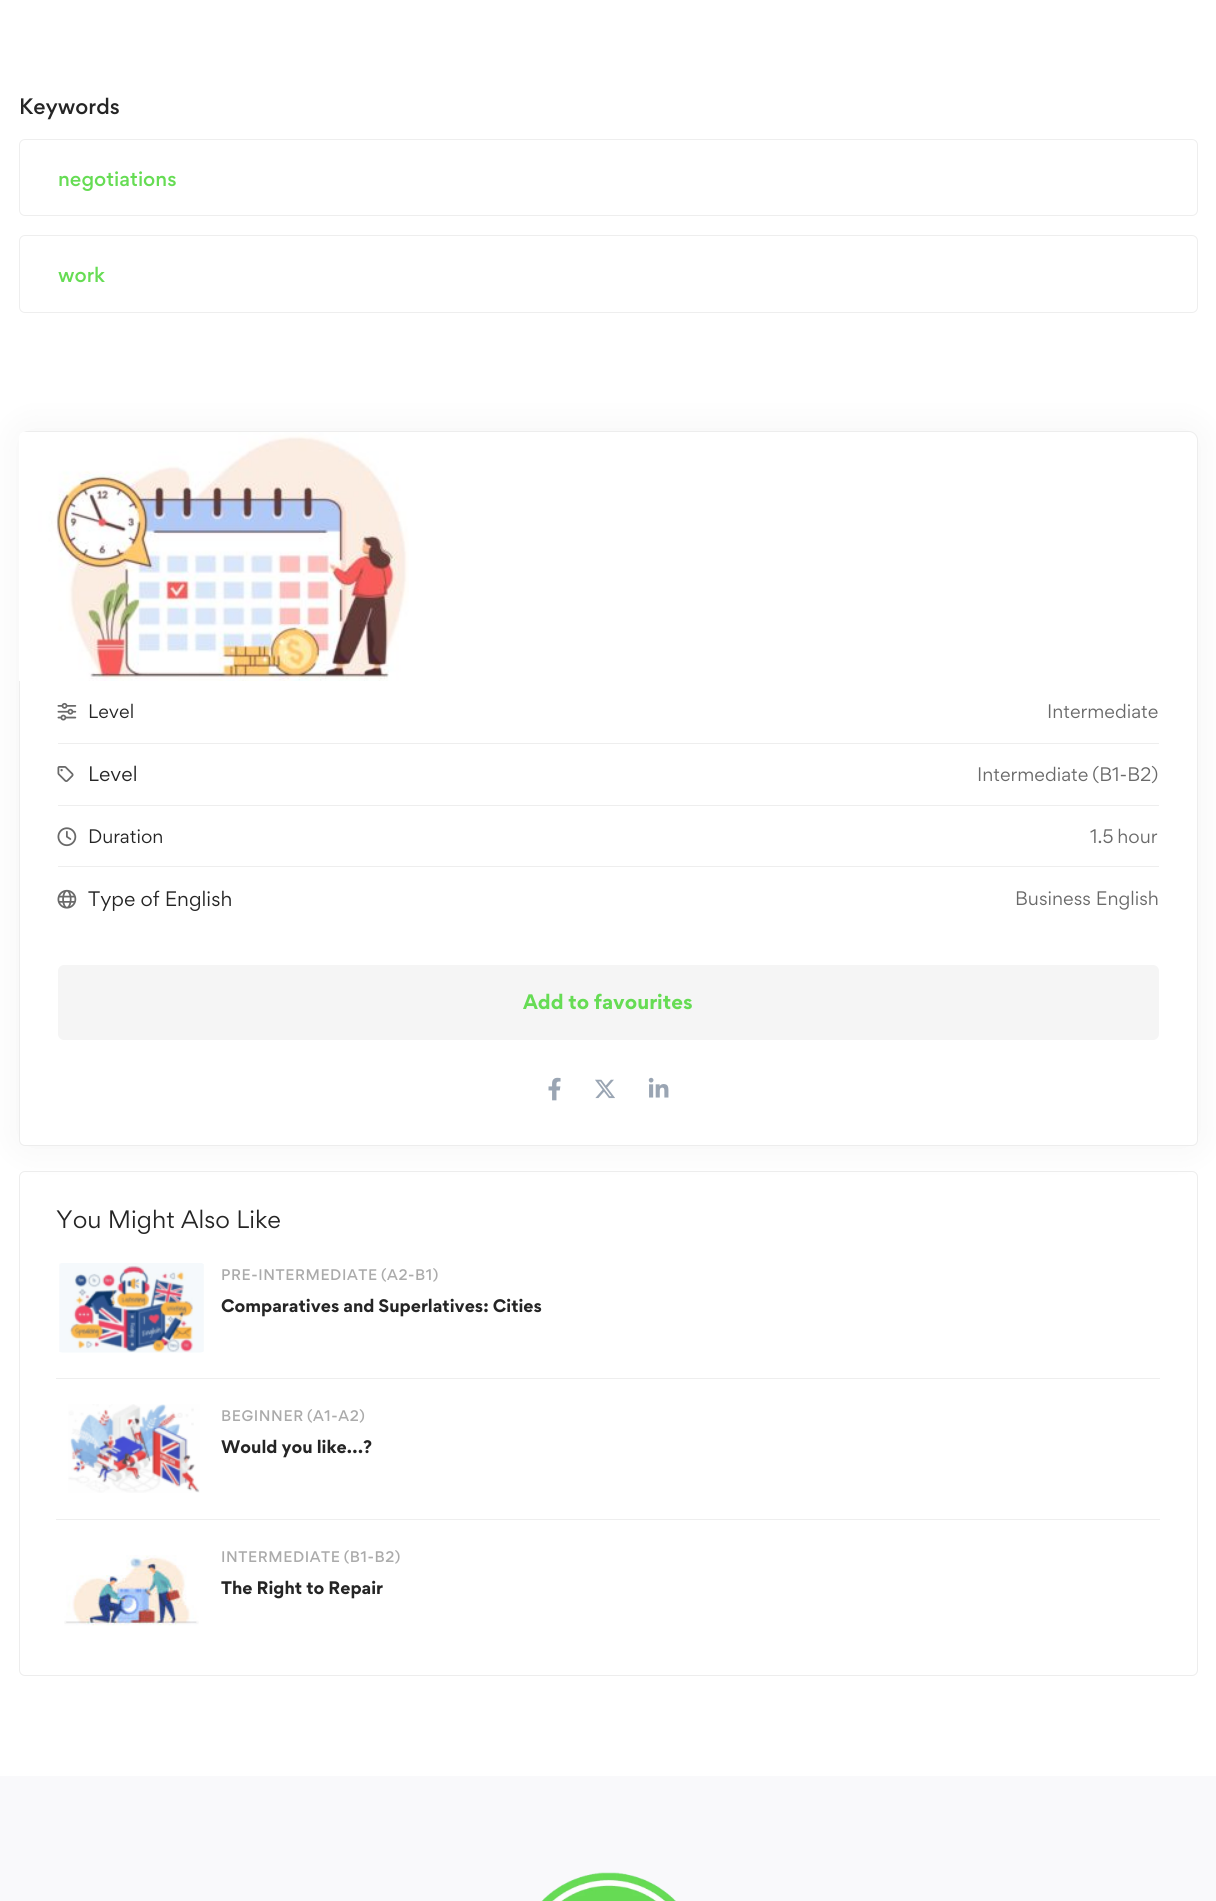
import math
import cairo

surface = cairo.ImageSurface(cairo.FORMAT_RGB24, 1216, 1901)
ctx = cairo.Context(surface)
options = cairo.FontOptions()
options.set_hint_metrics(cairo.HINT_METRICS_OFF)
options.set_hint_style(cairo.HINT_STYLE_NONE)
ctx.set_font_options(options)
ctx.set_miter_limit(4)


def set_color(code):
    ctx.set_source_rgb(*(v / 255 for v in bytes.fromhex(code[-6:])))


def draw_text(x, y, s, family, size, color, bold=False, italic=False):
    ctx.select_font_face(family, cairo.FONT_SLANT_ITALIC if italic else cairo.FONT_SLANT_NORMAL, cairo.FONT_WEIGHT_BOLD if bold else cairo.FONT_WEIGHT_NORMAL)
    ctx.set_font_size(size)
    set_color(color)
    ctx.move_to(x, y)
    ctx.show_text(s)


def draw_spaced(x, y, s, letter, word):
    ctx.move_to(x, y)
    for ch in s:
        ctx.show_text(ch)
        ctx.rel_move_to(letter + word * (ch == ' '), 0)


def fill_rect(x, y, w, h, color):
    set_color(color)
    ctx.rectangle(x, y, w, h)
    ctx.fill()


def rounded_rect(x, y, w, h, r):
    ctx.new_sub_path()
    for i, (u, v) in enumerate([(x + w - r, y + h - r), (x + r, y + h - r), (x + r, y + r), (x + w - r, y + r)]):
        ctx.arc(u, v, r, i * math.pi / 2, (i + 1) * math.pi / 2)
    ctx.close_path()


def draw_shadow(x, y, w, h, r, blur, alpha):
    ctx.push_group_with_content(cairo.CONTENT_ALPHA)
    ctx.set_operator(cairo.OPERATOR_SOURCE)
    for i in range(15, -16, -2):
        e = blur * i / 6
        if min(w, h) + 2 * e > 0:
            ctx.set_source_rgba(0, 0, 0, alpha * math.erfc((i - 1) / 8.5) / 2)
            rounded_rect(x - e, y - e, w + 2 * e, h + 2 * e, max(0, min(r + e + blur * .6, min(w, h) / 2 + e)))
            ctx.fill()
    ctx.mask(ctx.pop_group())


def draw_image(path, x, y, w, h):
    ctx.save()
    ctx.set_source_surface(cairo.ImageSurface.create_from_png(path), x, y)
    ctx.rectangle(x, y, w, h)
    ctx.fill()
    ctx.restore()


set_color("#ffffff")
ctx.paint()
draw_text(19, 114, "Keywords", "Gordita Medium", 20, "#252525")
rounded_rect(19.5, 139.5, 1178, 76, 5.5)
set_color("#eeeeee")
ctx.set_line_width(1)
ctx.stroke()
draw_text(58, 186, "negotiations", "Gordita Medium", 18.75, "#66dc54")
rounded_rect(19.5, 235.5, 1178, 77, 5.5)
set_color("#eeeeee")
ctx.stroke()
draw_text(58, 282, "work", "Gordita Medium", 18.75, "#66dc54")
set_color("#000000")
draw_shadow(19, 431, 1179, 715, 9, 19, 0.05)
set_color("#ffffff")
ctx.new_path()
ctx.move_to(28, 431.5)
ctx.line_to(1189, 431.5)
ctx.curve_to(1193.5, 431.5, 1197.5, 435.5, 1197.5, 440)
ctx.line_to(1197.5, 1140)
ctx.curve_to(1197.5, 1143, 1195, 1145.5, 1192, 1145.5)
ctx.line_to(25, 1145.5)
ctx.curve_to(22, 1145.5, 19.5, 1143, 19.5, 1140)
ctx.line_to(19.5, 440)
ctx.curve_to(19.5, 435.5, 23.5, 431.5, 28, 431.5)
ctx.close_path()
ctx.fill_preserve()
set_color("#ededed")
ctx.stroke()
draw_image("assets/img1.png", 19, 432, 390, 249)
draw_image("assets/img2.png", 57, 702, 20, 19)
draw_text(88, 718, "Level", "Gordita", 17.5, "#252525")
draw_text(1047, 718, "Intermediate", "Gordita", 17.5, "#696969")
fill_rect(58, 743, 1101, 1, "#eeeeee")
draw_image("assets/img3.png", 57, 766, 17, 16)
draw_text(88, 781, "Level", "Gordita", 18.75, "#252525")
ctx.set_font_size(17.5)
set_color("#696969")
draw_spaced(977, 781, "Intermediate (B1-B2)", 0, -1)
fill_rect(58, 805, 1101, 1, "#eeeeee")
draw_image("assets/img4.png", 57, 827, 20, 20)
draw_text(88, 843, "Duration", "Gordita", 17.5, "#252525")
set_color("#696969")
draw_spaced(1090, 843, "1.5 hour", 0, -1)
fill_rect(58, 866, 1101, 1, "#eeeeee")
draw_image("assets/img5.png", 57, 889, 20, 20)
draw_text(88, 906, "Type of English", "Gordita", 18.75, "#252525")
draw_text(1015, 905, "Business English", "Gordita", 17.5, "#696969")
set_color("#f5f5f5")
rounded_rect(58, 965, 1101, 75, 6)
ctx.fill()
draw_text(523, 1009, "Add to favourites", "Gordita", 18.75, "#66dc54", bold=True)
draw_image("assets/img6.png", 548, 1077, 13, 24)
draw_image("assets/img7.png", 595, 1079, 20, 20)
draw_image("assets/img8.png", 648, 1077, 21, 21)
rounded_rect(19.5, 1171.5, 1178, 504, 5.5)
set_color("#ededed")
ctx.stroke()
draw_text(56, 1228, "You Might Also Like", "Gordita", 22.5, "#252525")
draw_image("assets/img9.png", 59, 1263, 145, 90)
ctx.select_font_face("Gordita Medium")
ctx.set_font_size(13.75)
set_color("#ababab")
draw_spaced(221, 1280, "PRE-INTERMEDIATE (A2-B1)", 0.6, -1)
draw_text(221, 1312, "Comparatives and Superlatives: Cities", "Gordita", 16.25, "#252525", bold=True)
fill_rect(56, 1378, 1104, 1, "#eeeeee")
draw_image("assets/img10.png", 68, 1404, 132, 89)
ctx.select_font_face("Gordita Medium")
ctx.set_font_size(13.75)
set_color("#ababab")
draw_spaced(221, 1421, "BEGINNER (A1-A2)", 0.6, -1)
draw_text(221, 1453, "Would you like…?", "Gordita", 16.25, "#252525", bold=True)
fill_rect(56, 1519, 1104, 1, "#eeeeee")
draw_image("assets/img11.png", 64, 1555, 135, 71)
ctx.select_font_face("Gordita Medium")
ctx.set_font_size(13.75)
set_color("#ababab")
draw_spaced(221, 1562, "INTERMEDIATE (B1-B2)", 0.6, -1)
draw_text(221, 1594, "The Right to Repair", "Gordita", 16.25, "#252525", bold=True)
fill_rect(0, 1776, 1216, 125, "#f9f9fb")
draw_image("assets/img12.png", 541, 1872, 135, 29)
surface.write_to_png("output.png")
